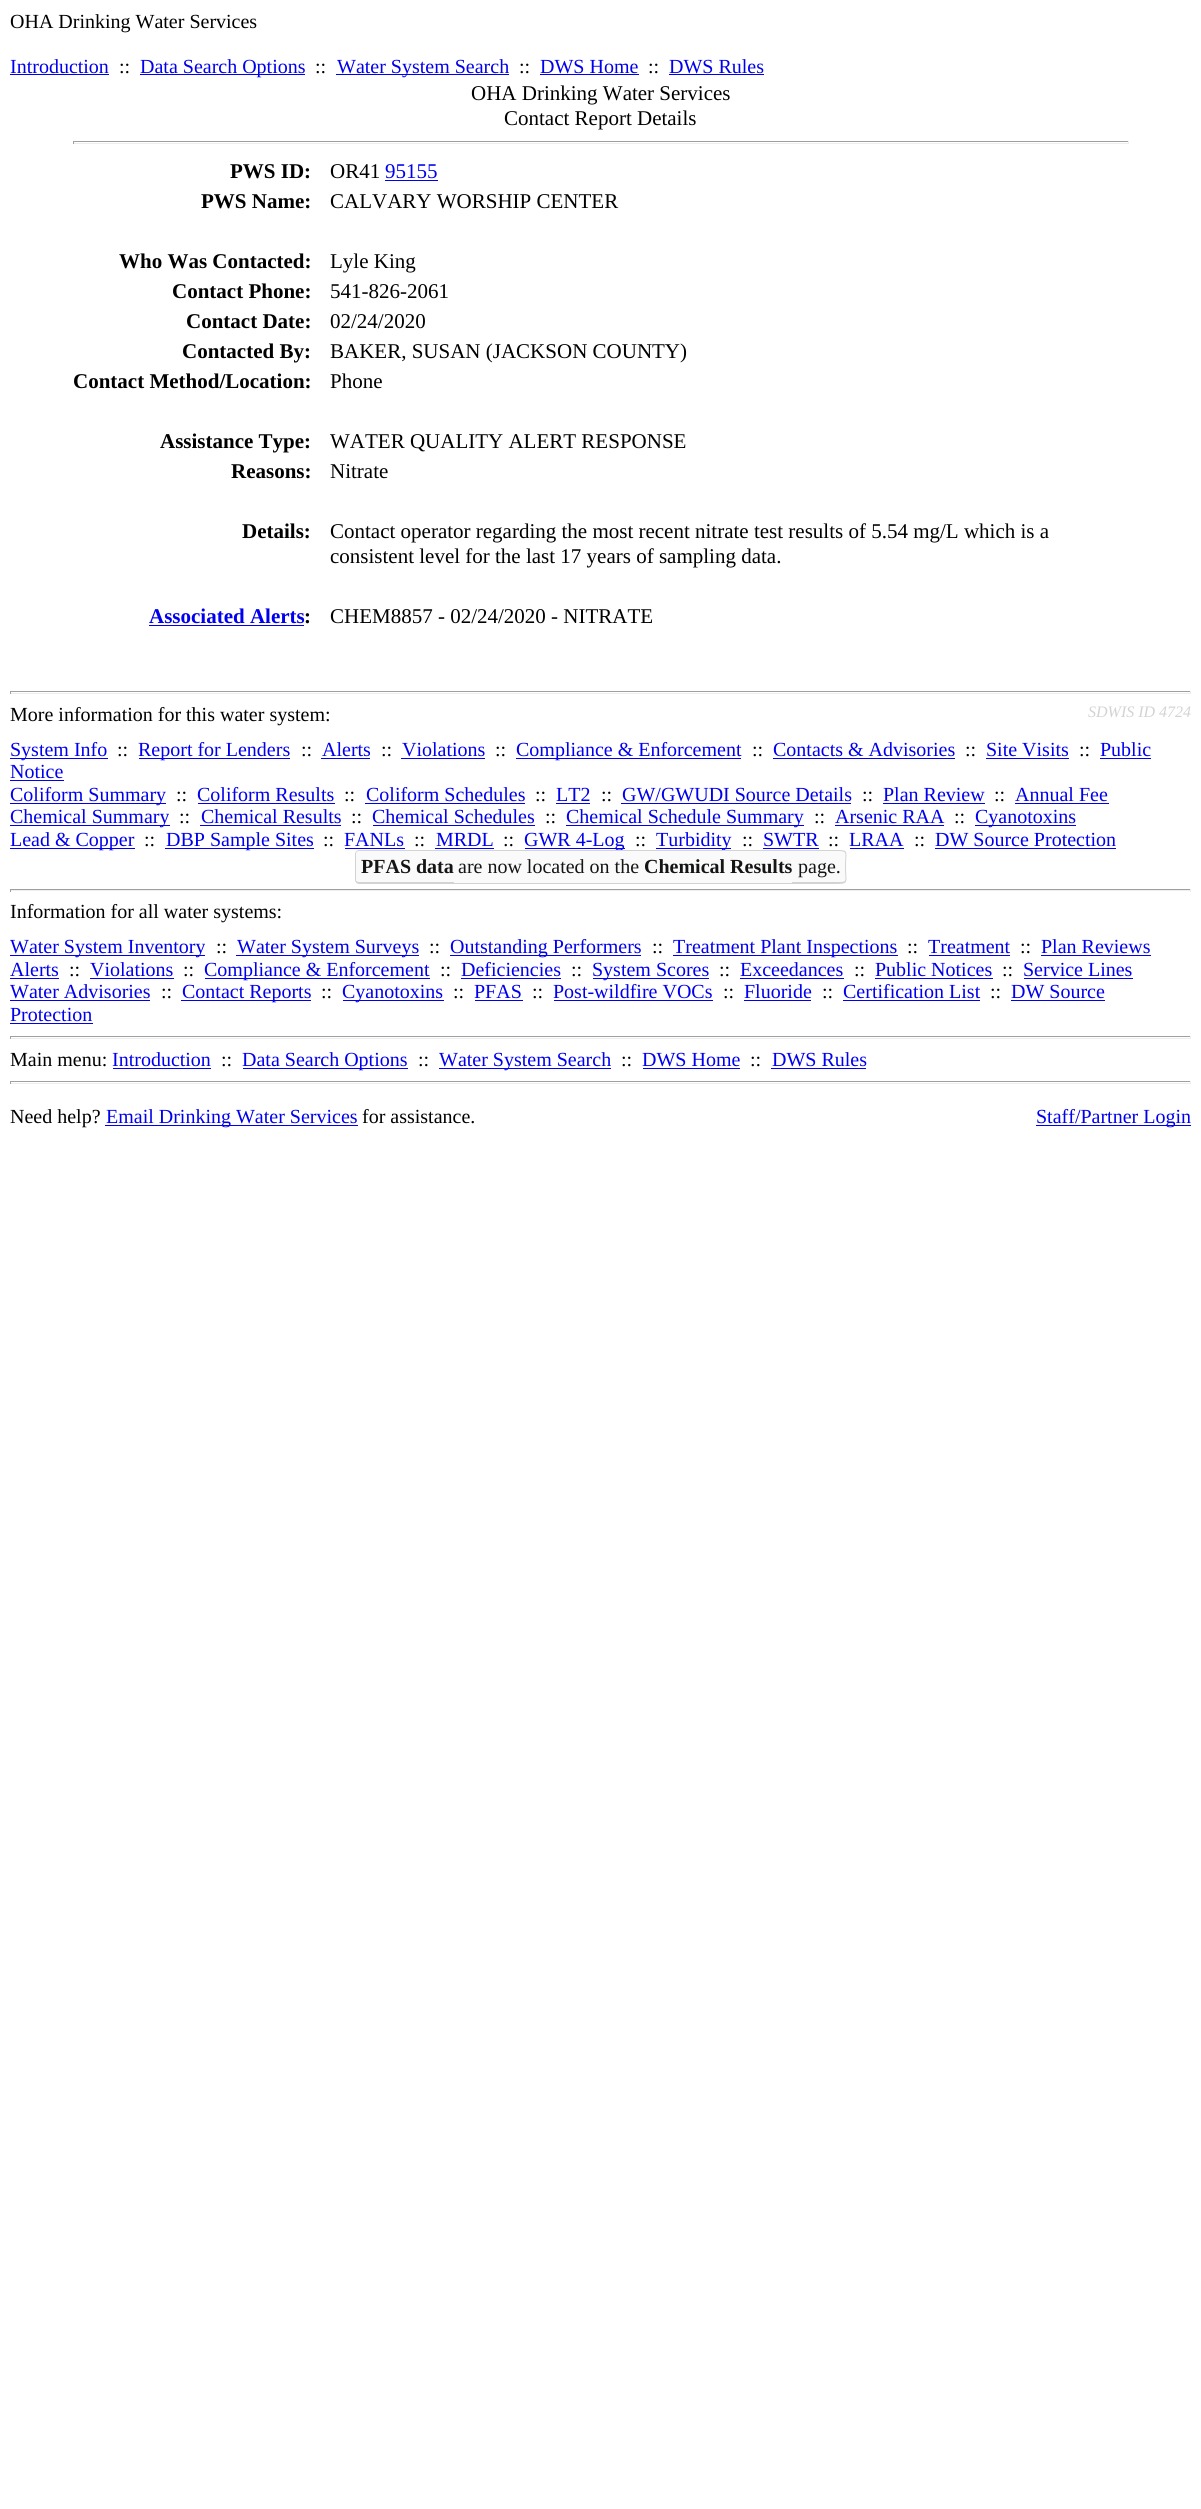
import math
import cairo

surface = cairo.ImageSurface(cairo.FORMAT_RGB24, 1201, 2509)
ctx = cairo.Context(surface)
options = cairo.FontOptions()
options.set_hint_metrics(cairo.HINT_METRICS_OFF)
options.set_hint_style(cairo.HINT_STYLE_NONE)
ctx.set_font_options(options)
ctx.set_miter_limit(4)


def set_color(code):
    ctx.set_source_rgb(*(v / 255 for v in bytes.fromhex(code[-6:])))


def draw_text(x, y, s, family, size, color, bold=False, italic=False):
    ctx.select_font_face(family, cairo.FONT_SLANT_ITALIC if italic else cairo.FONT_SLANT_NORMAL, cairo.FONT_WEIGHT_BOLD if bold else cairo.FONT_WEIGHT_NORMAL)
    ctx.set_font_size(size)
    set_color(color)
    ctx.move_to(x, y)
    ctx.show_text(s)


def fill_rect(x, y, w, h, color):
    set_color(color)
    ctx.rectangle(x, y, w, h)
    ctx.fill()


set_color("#ffffff")
ctx.paint()
draw_text(10, 28, "OHA Drinking Water Services", "Liberation Serif", 20, "#000000")
draw_text(10, 73, "Introduction", "Liberation Serif", 20, "#0000ee")
fill_rect(10, 74, 99, 1, "#0000ee")
draw_text(119, 73, "::", "Liberation Serif", 20, "#000000")
fill_rect(140, 74, 165, 1, "#0000ee")
draw_text(140, 73, "Data Search Options", "Liberation Serif", 20, "#0000ee")
draw_text(315, 73, "::", "Liberation Serif", 20, "#000000")
fill_rect(336, 74, 173, 1, "#0000ee")
draw_text(337, 73, "Water System Search", "Liberation Serif", 20, "#0000ee")
draw_text(519, 73, "::", "Liberation Serif", 20, "#000000")
draw_text(540, 73, "DWS Home", "Liberation Serif", 20, "#0000ee")
fill_rect(540, 74, 99, 1, "#0000ee")
draw_text(648, 73, "::", "Liberation Serif", 20, "#000000")
draw_text(669, 73, "DWS Rules", "Liberation Serif", 20, "#0000ee")
fill_rect(669, 74, 95, 1, "#0000ee")
draw_text(471, 100, "OHA Drinking Water Services", "Liberation Serif", 21, "#000000")
draw_text(504, 125, "Contact Report Details", "Liberation Serif", 21, "#000000")
fill_rect(73, 141, 1056, 1, "#9f9f9f")
fill_rect(1128, 141, 1, 3, "#eeeeee")
fill_rect(73, 143, 1056, 1, "#eeeeee")
fill_rect(73, 141, 1, 3, "#9f9f9f")
draw_text(230, 178, "PWS ID:", "Liberation Serif", 21, "#000000", bold=True)
draw_text(330, 178, "OR41", "Liberation Serif", 21, "#000000")
draw_text(385, 178, "95155", "Liberation Serif", 21, "#0000ee")
fill_rect(385, 180, 53, 1, "#0000ee")
draw_text(201, 208, "PWS Name:", "Liberation Serif", 21, "#000000", bold=True)
draw_text(330, 208, "CALVARY WORSHIP CENTER", "Liberation Serif", 21, "#000000")
draw_text(119, 268, "Who Was Contacted:", "Liberation Serif", 21, "#000000", bold=True)
draw_text(330, 268, "Lyle King", "Liberation Serif", 21, "#000000")
draw_text(172, 298, "Contact Phone:", "Liberation Serif", 21, "#000000", bold=True)
draw_text(330, 298, "541-826-2061", "Liberation Serif", 21, "#000000")
draw_text(186, 328, "Contact Date:", "Liberation Serif", 21, "#000000", bold=True)
draw_text(330, 328, "02/24/2020", "Liberation Serif", 21, "#000000")
draw_text(182, 358, "Contacted By:", "Liberation Serif", 21, "#000000", bold=True)
draw_text(330, 358, "BAKER, SUSAN (JACKSON COUNTY)", "Liberation Serif", 21, "#000000")
draw_text(73, 388, "Contact Method/Location:", "Liberation Serif", 21, "#000000", bold=True)
draw_text(330, 388, "Phone", "Liberation Serif", 21, "#000000")
draw_text(160, 448, "Assistance Type:", "Liberation Serif", 21, "#000000", bold=True)
draw_text(330, 448, "WATER QUALITY ALERT RESPONSE", "Liberation Serif", 21, "#000000")
draw_text(231, 478, "Reasons:", "Liberation Serif", 21, "#000000", bold=True)
draw_text(330, 478, "Nitrate", "Liberation Serif", 21, "#000000")
draw_text(242, 538, "Details:", "Liberation Serif", 21, "#000000", bold=True)
draw_text(330, 538, "Contact operator regarding the most recent nitrate test results of 5.54 mg/L which is a", "Liberation Serif", 21, "#000000")
draw_text(330, 563, "consistent level for the last 17 years of sampling data.", "Liberation Serif", 21, "#000000")
draw_text(149, 623, "Associated Alerts", "Liberation Serif", 21, "#0000ee", bold=True)
draw_text(304, 623, ":", "Liberation Serif", 21, "#000000", bold=True)
fill_rect(149, 625, 155, 1, "#0000ee")
draw_text(330, 623, "CHEM8857 - 02/24/2020 - NITRATE", "Liberation Serif", 21, "#000000")
fill_rect(10, 691, 1181, 1, "#9f9f9f")
fill_rect(1190, 691, 1, 3, "#eeeeee")
fill_rect(10, 693, 1181, 1, "#eeeeee")
fill_rect(10, 691, 1, 3, "#9f9f9f")
draw_text(10, 721, "More information for this water system:", "Liberation Serif", 20, "#000000")
draw_text(1088, 717, "SDWIS ID 4724", "Liberation Serif", 16, "#d3d3d3", italic=True)
fill_rect(10, 758, 98, 1, "#0000ee")
draw_text(10, 756, "System Info", "Liberation Serif", 20, "#0000ee")
draw_text(117, 756, "::", "Liberation Serif", 20, "#000000")
fill_rect(139, 758, 151, 1, "#0000ee")
draw_text(138, 756, "Report for Lenders", "Liberation Serif", 20, "#0000ee")
draw_text(301, 756, "::", "Liberation Serif", 20, "#000000")
draw_text(322, 756, "Alerts", "Liberation Serif", 20, "#0000ee")
fill_rect(321, 758, 49, 1, "#0000ee")
draw_text(381, 756, "::", "Liberation Serif", 20, "#000000")
draw_text(402, 756, "Violations", "Liberation Serif", 20, "#0000ee")
fill_rect(401, 758, 84, 1, "#0000ee")
draw_text(495, 756, "::", "Liberation Serif", 20, "#000000")
fill_rect(516, 758, 225, 1, "#0000ee")
draw_text(516, 756, "Compliance & Enforcement", "Liberation Serif", 20, "#0000ee")
draw_text(752, 756, "::", "Liberation Serif", 20, "#000000")
draw_text(773, 756, "Contacts & Advisories", "Liberation Serif", 20, "#0000ee")
fill_rect(773, 758, 182, 1, "#0000ee")
draw_text(965, 756, "::", "Liberation Serif", 20, "#000000")
draw_text(986, 756, "Site Visits", "Liberation Serif", 20, "#0000ee")
fill_rect(986, 758, 83, 1, "#0000ee")
draw_text(1079, 756, "::", "Liberation Serif", 20, "#000000")
draw_text(1100, 756, "Public", "Liberation Serif", 20, "#0000ee")
fill_rect(1100, 758, 51, 1, "#0000ee")
draw_text(10, 778, "Notice", "Liberation Serif", 20, "#0000ee")
fill_rect(10, 780, 54, 1, "#0000ee")
fill_rect(10, 803, 156, 1, "#0000ee")
draw_text(10, 801, "Coliform Summary", "Liberation Serif", 20, "#0000ee")
draw_text(176, 801, "::", "Liberation Serif", 20, "#000000")
draw_text(197, 801, "Coliform Results", "Liberation Serif", 20, "#0000ee")
fill_rect(198, 803, 137, 1, "#0000ee")
draw_text(344, 801, "::", "Liberation Serif", 20, "#000000")
draw_text(366, 801, "Coliform Schedules", "Liberation Serif", 20, "#0000ee")
fill_rect(365, 803, 160, 1, "#0000ee")
draw_text(535, 801, "::", "Liberation Serif", 20, "#000000")
draw_text(556, 801, "LT2", "Liberation Serif", 20, "#0000ee")
fill_rect(556, 803, 34, 1, "#0000ee")
draw_text(601, 801, "::", "Liberation Serif", 20, "#000000")
draw_text(622, 801, "GW/GWUDI Source Details", "Liberation Serif", 20, "#0000ee")
fill_rect(621, 803, 230, 1, "#0000ee")
draw_text(862, 801, "::", "Liberation Serif", 20, "#000000")
draw_text(883, 801, "Plan Review", "Liberation Serif", 20, "#0000ee")
fill_rect(883, 803, 102, 1, "#0000ee")
draw_text(994, 801, "::", "Liberation Serif", 20, "#000000")
draw_text(1015, 801, "Annual Fee", "Liberation Serif", 20, "#0000ee")
fill_rect(1015, 803, 94, 1, "#0000ee")
fill_rect(10, 825, 160, 1, "#0000ee")
draw_text(10, 823, "Chemical Summary", "Liberation Serif", 20, "#0000ee")
draw_text(179, 823, "::", "Liberation Serif", 20, "#000000")
draw_text(201, 823, "Chemical Results", "Liberation Serif", 20, "#0000ee")
fill_rect(200, 825, 141, 1, "#0000ee")
draw_text(351, 823, "::", "Liberation Serif", 20, "#000000")
draw_text(372, 823, "Chemical Schedules", "Liberation Serif", 20, "#0000ee")
fill_rect(373, 825, 162, 1, "#0000ee")
draw_text(545, 823, "::", "Liberation Serif", 20, "#000000")
fill_rect(566, 825, 238, 1, "#0000ee")
draw_text(566, 823, "Chemical Schedule Summary", "Liberation Serif", 20, "#0000ee")
draw_text(814, 823, "::", "Liberation Serif", 20, "#000000")
draw_text(835, 823, "Arsenic RAA", "Liberation Serif", 20, "#0000ee")
fill_rect(835, 825, 109, 1, "#0000ee")
draw_text(954, 823, "::", "Liberation Serif", 20, "#000000")
fill_rect(975, 825, 101, 1, "#0000ee")
draw_text(975, 823, "Cyanotoxins", "Liberation Serif", 20, "#0000ee")
fill_rect(10, 848, 125, 1, "#0000ee")
draw_text(10, 846, "Lead & Copper", "Liberation Serif", 20, "#0000ee")
draw_text(144, 846, "::", "Liberation Serif", 20, "#000000")
fill_rect(165, 848, 149, 1, "#0000ee")
draw_text(166, 846, "DBP Sample Sites", "Liberation Serif", 20, "#0000ee")
draw_text(323, 846, "::", "Liberation Serif", 20, "#000000")
draw_text(344, 846, "FANLs", "Liberation Serif", 20, "#0000ee")
fill_rect(345, 848, 60, 1, "#0000ee")
draw_text(414, 846, "::", "Liberation Serif", 20, "#000000")
draw_text(436, 846, "MRDL", "Liberation Serif", 20, "#0000ee")
fill_rect(435, 848, 59, 1, "#0000ee")
draw_text(503, 846, "::", "Liberation Serif", 20, "#000000")
fill_rect(525, 848, 100, 1, "#0000ee")
draw_text(524, 846, "GWR 4-Log", "Liberation Serif", 20, "#0000ee")
draw_text(635, 846, "::", "Liberation Serif", 20, "#000000")
fill_rect(656, 848, 75, 1, "#0000ee")
draw_text(656, 846, "Turbidity", "Liberation Serif", 20, "#0000ee")
draw_text(742, 846, "::", "Liberation Serif", 20, "#000000")
draw_text(763, 846, "SWTR", "Liberation Serif", 20, "#0000ee")
fill_rect(763, 848, 56, 1, "#0000ee")
draw_text(828, 846, "::", "Liberation Serif", 20, "#000000")
draw_text(849, 846, "LRAA", "Liberation Serif", 20, "#0000ee")
fill_rect(850, 848, 54, 1, "#0000ee")
draw_text(914, 846, "::", "Liberation Serif", 20, "#000000")
draw_text(935, 846, "DW Source Protection", "Liberation Serif", 20, "#0000ee")
fill_rect(935, 848, 181, 1, "#0000ee")
set_color("#fafafa")
ctx.new_path()
ctx.move_to(359, 850)
ctx.line_to(454, 850)
ctx.line_to(454, 884)
ctx.line_to(359, 884)
ctx.curve_to(357, 884, 355, 882, 355, 880)
ctx.line_to(355, 854)
ctx.curve_to(355, 852, 357, 850, 359, 850)
ctx.close_path()
ctx.fill()
set_color("#d3d3d3")
ctx.set_fill_rule(cairo.FILL_RULE_EVEN_ODD)
ctx.new_path()
ctx.move_to(359, 850)
ctx.line_to(454, 850)
ctx.line_to(454, 884)
ctx.line_to(359, 884)
ctx.curve_to(357, 884, 355, 882, 355, 880)
ctx.line_to(355, 854)
ctx.curve_to(355, 852, 357, 850, 359, 850)
ctx.close_path()
ctx.move_to(359, 851)
ctx.line_to(454, 851)
ctx.line_to(454, 882)
ctx.line_to(359, 882)
ctx.curve_to(357, 882, 356, 881, 356, 880)
ctx.line_to(356, 854)
ctx.curve_to(356, 852, 357, 851, 359, 851)
ctx.close_path()
ctx.fill()
draw_text(361, 873, "PFAS data", "Liberation Serif", 20, "#151515", bold=True)
fill_rect(454, 851, 339, 32, "#fafafa")
fill_rect(454, 850, 339, 1, "#d3d3d3")
draw_text(458, 873, "are now located on the", "Liberation Serif", 20, "#151515")
set_color("#fafafa")
ctx.new_path()
ctx.move_to(793, 850)
ctx.line_to(842, 850)
ctx.curve_to(844, 850, 846, 852, 846, 854)
ctx.line_to(846, 880)
ctx.curve_to(846, 882, 844, 884, 842, 884)
ctx.line_to(793, 884)
ctx.close_path()
ctx.fill()
fill_rect(454, 883, 339, 1, "#d3d3d3")
ctx.new_path()
ctx.move_to(792, 850)
ctx.line_to(834, 850)
ctx.curve_to(850, 850, 846, 850, 846, 867)
ctx.curve_to(846, 883, 850, 884, 834, 884)
ctx.line_to(792, 884)
ctx.close_path()
ctx.move_to(792, 851)
ctx.line_to(834, 851)
ctx.curve_to(849, 851, 845, 851, 845, 867)
ctx.curve_to(845, 883, 849, 882, 834, 882)
ctx.line_to(792, 882)
ctx.close_path()
ctx.fill()
draw_text(644, 873, "Chemical Results", "Liberation Serif", 20, "#151515", bold=True)
draw_text(798, 873, "page.", "Liberation Serif", 20, "#151515")
fill_rect(10, 889, 1181, 1, "#9f9f9f")
fill_rect(1190, 889, 1, 3, "#eeeeee")
fill_rect(10, 890, 1181, 1, "#eeeeee")
fill_rect(10, 889, 1, 3, "#9f9f9f")
draw_text(10, 918, "Information for all water systems:", "Liberation Serif", 20, "#000000")
fill_rect(10, 955, 195, 1, "#0000ee")
draw_text(10, 953, "Water System Inventory", "Liberation Serif", 20, "#0000ee")
draw_text(216, 953, "::", "Liberation Serif", 20, "#000000")
fill_rect(236, 955, 183, 1, "#0000ee")
draw_text(237, 953, "Water System Surveys", "Liberation Serif", 20, "#0000ee")
draw_text(429, 953, "::", "Liberation Serif", 20, "#000000")
fill_rect(450, 955, 191, 1, "#0000ee")
draw_text(450, 953, "Outstanding Performers", "Liberation Serif", 20, "#0000ee")
draw_text(652, 953, "::", "Liberation Serif", 20, "#000000")
fill_rect(673, 955, 225, 1, "#0000ee")
draw_text(673, 953, "Treatment Plant Inspections", "Liberation Serif", 20, "#0000ee")
draw_text(907, 953, "::", "Liberation Serif", 20, "#000000")
draw_text(928, 953, "Treatment", "Liberation Serif", 20, "#0000ee")
fill_rect(929, 955, 81, 1, "#0000ee")
draw_text(1020, 953, "::", "Liberation Serif", 20, "#000000")
draw_text(1041, 953, "Plan Reviews", "Liberation Serif", 20, "#0000ee")
fill_rect(1041, 955, 110, 1, "#0000ee")
draw_text(10, 976, "Alerts", "Liberation Serif", 20, "#0000ee")
fill_rect(10, 978, 49, 1, "#0000ee")
draw_text(69, 976, "::", "Liberation Serif", 20, "#000000")
draw_text(90, 976, "Violations", "Liberation Serif", 20, "#0000ee")
fill_rect(90, 978, 84, 1, "#0000ee")
draw_text(183, 976, "::", "Liberation Serif", 20, "#000000")
fill_rect(205, 978, 225, 1, "#0000ee")
draw_text(204, 976, "Compliance & Enforcement", "Liberation Serif", 20, "#0000ee")
draw_text(440, 976, "::", "Liberation Serif", 20, "#000000")
draw_text(461, 976, "Deficiencies", "Liberation Serif", 20, "#0000ee")
fill_rect(461, 978, 100, 1, "#0000ee")
draw_text(571, 976, "::", "Liberation Serif", 20, "#000000")
fill_rect(593, 978, 116, 1, "#0000ee")
draw_text(592, 976, "System Scores", "Liberation Serif", 20, "#0000ee")
draw_text(719, 976, "::", "Liberation Serif", 20, "#000000")
draw_text(740, 976, "Exceedances", "Liberation Serif", 20, "#0000ee")
fill_rect(740, 978, 104, 1, "#0000ee")
draw_text(854, 976, "::", "Liberation Serif", 20, "#000000")
draw_text(875, 976, "Public Notices", "Liberation Serif", 20, "#0000ee")
fill_rect(875, 978, 118, 1, "#0000ee")
draw_text(1002, 976, "::", "Liberation Serif", 20, "#000000")
draw_text(1023, 976, "Service Lines", "Liberation Serif", 20, "#0000ee")
fill_rect(1024, 978, 109, 1, "#0000ee")
draw_text(10, 998, "Water Advisories", "Liberation Serif", 20, "#0000ee")
fill_rect(10, 1000, 140, 1, "#0000ee")
draw_text(161, 998, "::", "Liberation Serif", 20, "#000000")
fill_rect(181, 1000, 130, 1, "#0000ee")
draw_text(182, 998, "Contact Reports", "Liberation Serif", 20, "#0000ee")
draw_text(321, 998, "::", "Liberation Serif", 20, "#000000")
fill_rect(343, 1000, 101, 1, "#0000ee")
draw_text(342, 998, "Cyanotoxins", "Liberation Serif", 20, "#0000ee")
draw_text(453, 998, "::", "Liberation Serif", 20, "#000000")
draw_text(474, 998, "PFAS", "Liberation Serif", 20, "#0000ee")
fill_rect(475, 1000, 48, 1, "#0000ee")
draw_text(532, 998, "::", "Liberation Serif", 20, "#000000")
draw_text(553, 998, "Post-wildfire VOCs", "Liberation Serif", 20, "#0000ee")
fill_rect(554, 1000, 159, 1, "#0000ee")
draw_text(723, 998, "::", "Liberation Serif", 20, "#000000")
draw_text(744, 998, "Fluoride", "Liberation Serif", 20, "#0000ee")
fill_rect(744, 1000, 67, 1, "#0000ee")
draw_text(822, 998, "::", "Liberation Serif", 20, "#000000")
draw_text(843, 998, "Certification List", "Liberation Serif", 20, "#0000ee")
fill_rect(843, 1000, 137, 1, "#0000ee")
draw_text(990, 998, "::", "Liberation Serif", 20, "#000000")
draw_text(1011, 998, "DW Source", "Liberation Serif", 20, "#0000ee")
fill_rect(1011, 1000, 94, 1, "#0000ee")
draw_text(10, 1021, "Protection", "Liberation Serif", 20, "#0000ee")
fill_rect(10, 1023, 83, 1, "#0000ee")
fill_rect(10, 1036, 1181, 1, "#9f9f9f")
fill_rect(1190, 1036, 1, 3, "#eeeeee")
fill_rect(10, 1038, 1181, 1, "#eeeeee")
fill_rect(10, 1036, 1, 3, "#9f9f9f")
draw_text(10, 1066, "Main menu:", "Liberation Serif", 20, "#000000")
draw_text(112, 1066, "Introduction", "Liberation Serif", 20, "#0000ee")
fill_rect(113, 1068, 98, 1, "#0000ee")
draw_text(221, 1066, "::", "Liberation Serif", 20, "#000000")
fill_rect(243, 1068, 165, 1, "#0000ee")
draw_text(242, 1066, "Data Search Options", "Liberation Serif", 20, "#0000ee")
draw_text(418, 1066, "::", "Liberation Serif", 20, "#000000")
fill_rect(439, 1068, 172, 1, "#0000ee")
draw_text(439, 1066, "Water System Search", "Liberation Serif", 20, "#0000ee")
draw_text(621, 1066, "::", "Liberation Serif", 20, "#000000")
draw_text(642, 1066, "DWS Home", "Liberation Serif", 20, "#0000ee")
fill_rect(643, 1068, 97, 1, "#0000ee")
draw_text(750, 1066, "::", "Liberation Serif", 20, "#000000")
draw_text(772, 1066, "DWS Rules", "Liberation Serif", 20, "#0000ee")
fill_rect(771, 1068, 95, 1, "#0000ee")
fill_rect(10, 1081, 1181, 1, "#9f9f9f")
fill_rect(1190, 1081, 1, 3, "#eeeeee")
fill_rect(10, 1083, 1181, 1, "#eeeeee")
fill_rect(10, 1081, 1, 3, "#9f9f9f")
draw_text(10, 1123, "Need help?", "Liberation Serif", 20, "#000000")
fill_rect(105, 1125, 253, 1, "#0000ee")
draw_text(106, 1123, "Email Drinking Water Services", "Liberation Serif", 20, "#0000ee")
draw_text(362, 1123, "for assistance.", "Liberation Serif", 20, "#000000")
fill_rect(1036, 1125, 155, 1, "#0000ee")
draw_text(1036, 1123, "Staff/Partner Login", "Liberation Serif", 20, "#0000ee")
surface.write_to_png("output.png")
